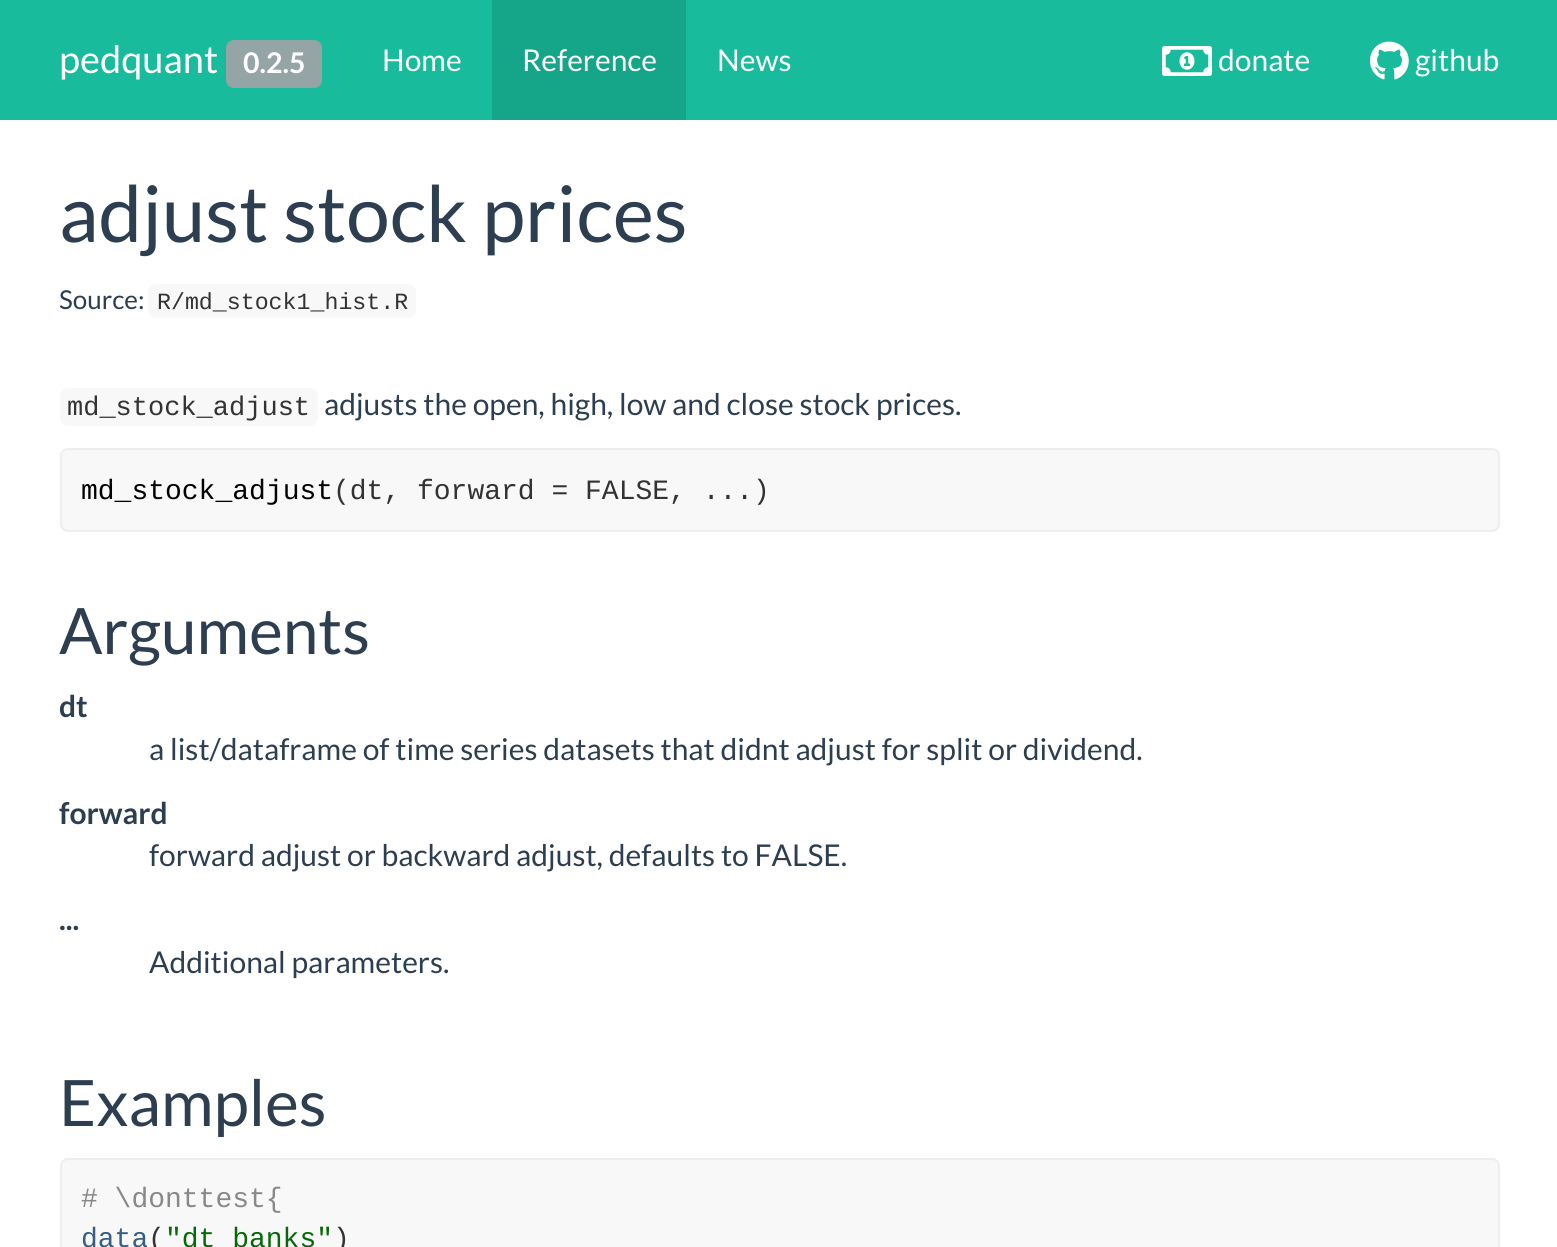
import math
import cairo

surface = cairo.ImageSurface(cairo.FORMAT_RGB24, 1557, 1247)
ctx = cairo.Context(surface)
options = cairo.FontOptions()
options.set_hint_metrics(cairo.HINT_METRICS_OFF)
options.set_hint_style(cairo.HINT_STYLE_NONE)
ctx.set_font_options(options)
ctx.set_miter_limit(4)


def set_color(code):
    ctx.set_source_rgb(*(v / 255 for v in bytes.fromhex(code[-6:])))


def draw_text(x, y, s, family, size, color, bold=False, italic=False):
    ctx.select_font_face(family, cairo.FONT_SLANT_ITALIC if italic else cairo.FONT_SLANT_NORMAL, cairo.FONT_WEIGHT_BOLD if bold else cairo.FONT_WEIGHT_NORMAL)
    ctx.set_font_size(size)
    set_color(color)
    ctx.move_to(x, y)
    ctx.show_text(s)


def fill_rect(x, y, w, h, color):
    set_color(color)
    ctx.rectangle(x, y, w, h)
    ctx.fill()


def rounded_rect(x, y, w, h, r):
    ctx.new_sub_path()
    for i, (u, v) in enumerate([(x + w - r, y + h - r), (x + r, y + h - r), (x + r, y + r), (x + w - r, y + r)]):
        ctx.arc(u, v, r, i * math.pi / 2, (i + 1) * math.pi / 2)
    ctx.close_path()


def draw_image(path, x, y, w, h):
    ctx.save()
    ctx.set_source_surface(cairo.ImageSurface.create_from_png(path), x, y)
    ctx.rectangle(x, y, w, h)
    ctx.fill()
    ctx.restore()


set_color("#ffffff")
ctx.paint()
fill_rect(0, 0, 1557, 120, "#18bc9c")
draw_text(59, 73, "pedquant", "Lato", 38, "#ffffff")
set_color("#95a5a6")
rounded_rect(226, 40, 96, 48, 8)
ctx.fill()
draw_text(243, 73, "0.2.5", "Lato", 28.5, "#ffffff", bold=True)
draw_text(382, 71, "Home", "Lato", 30, "#ffffff")
fill_rect(492, 0, 194, 120, "#15a589")
draw_text(522, 71, "Reference", "Lato", 30, "#ffffff")
draw_text(717, 71, "News", "Lato", 30, "#ffffff")
draw_image("assets/img1.png", 1162, 46, 50, 30)
draw_text(1218, 71, "donate", "Lato", 30, "#ffffff")
draw_image("assets/img2.png", 1370, 41, 39, 39)
draw_text(1415, 71, "github", "Lato", 30, "#ffffff")
draw_text(59, 242, "adjust stock prices", "Lato", 78, "#2c3e50")
draw_text(59, 309, "Source:", "Lato", 26, "#2c3e50")
set_color("#f8f8f8")
rounded_rect(148, 284, 268, 34, 8)
ctx.fill()
draw_text(157, 309, "R/md_stock1_hist.R", "Liberation Mono", 23.25, "#333333")
set_color("#f8f8f8")
rounded_rect(60, 388, 258, 38, 8)
ctx.fill()
draw_text(67, 415, "md_stock_adjust", "Liberation Mono", 27, "#333333")
draw_text(324, 415, "adjusts the open, high, low and close stock prices.", "Lato", 30, "#2c3e50")
set_color("#f8f8f8")
rounded_rect(61, 449, 1438, 82, 7)
ctx.fill_preserve()
set_color("#eeeeee")
ctx.stroke()
draw_text(81, 499, "md_stock_adjust", "Liberation Mono", 28, "#000000")
draw_text(333, 499, "(dt, forward = FALSE, ...)", "Liberation Mono", 28, "#333333")
draw_text(59, 654, "Arguments", "Lato", 64, "#2c3e50")
draw_text(59, 717, "dt", "Lato", 30, "#2c3e50", bold=True)
draw_text(149, 760, "a list/dataframe of time series datasets that didnt adjust for split or dividend.", "Lato", 30, "#2c3e50")
draw_text(59, 824, "forward", "Lato", 30, "#2c3e50", bold=True)
draw_text(149, 866, "forward adjust or backward adjust, defaults to FALSE.", "Lato", 30, "#2c3e50")
draw_text(59, 930, "...", "Lato", 30, "#2c3e50", bold=True)
draw_text(149, 973, "Additional parameters.", "Lato", 30, "#2c3e50")
draw_text(59, 1126, "Examples", "Lato", 64, "#2c3e50")
set_color("#f8f8f8")
rounded_rect(61, 1159, 1438, 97, 7)
ctx.fill_preserve()
set_color("#eeeeee")
ctx.stroke()
draw_text(81, 1207, "# \\donttest{", "Liberation Mono", 28, "#888888")
draw_text(81, 1247, "data", "Liberation Mono", 28, "#375f84")
draw_text(148, 1247, "(", "Liberation Mono", 28, "#333333")
draw_text(165, 1247, "\"dt_banks\"", "Liberation Mono", 28, "#036a07")
draw_text(333, 1247, ")", "Liberation Mono", 28, "#333333")
surface.write_to_png("output.png")
